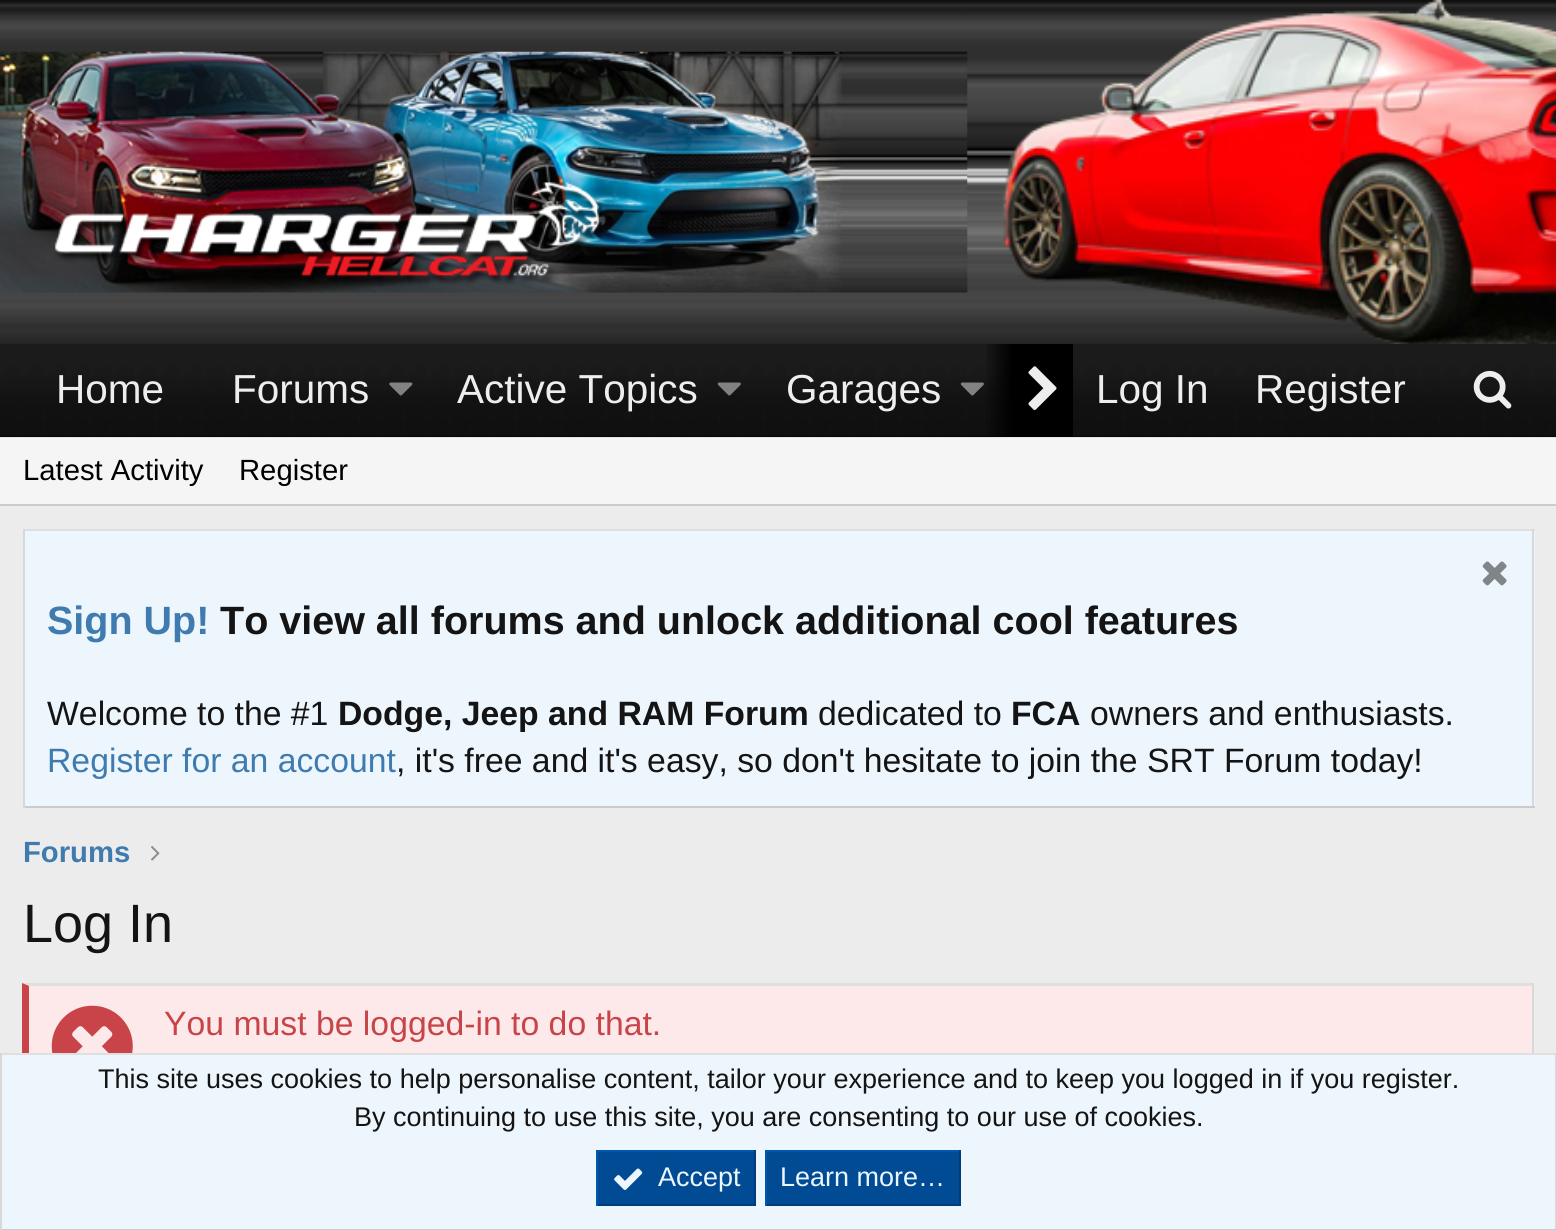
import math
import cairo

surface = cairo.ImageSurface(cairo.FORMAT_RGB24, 1556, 1230)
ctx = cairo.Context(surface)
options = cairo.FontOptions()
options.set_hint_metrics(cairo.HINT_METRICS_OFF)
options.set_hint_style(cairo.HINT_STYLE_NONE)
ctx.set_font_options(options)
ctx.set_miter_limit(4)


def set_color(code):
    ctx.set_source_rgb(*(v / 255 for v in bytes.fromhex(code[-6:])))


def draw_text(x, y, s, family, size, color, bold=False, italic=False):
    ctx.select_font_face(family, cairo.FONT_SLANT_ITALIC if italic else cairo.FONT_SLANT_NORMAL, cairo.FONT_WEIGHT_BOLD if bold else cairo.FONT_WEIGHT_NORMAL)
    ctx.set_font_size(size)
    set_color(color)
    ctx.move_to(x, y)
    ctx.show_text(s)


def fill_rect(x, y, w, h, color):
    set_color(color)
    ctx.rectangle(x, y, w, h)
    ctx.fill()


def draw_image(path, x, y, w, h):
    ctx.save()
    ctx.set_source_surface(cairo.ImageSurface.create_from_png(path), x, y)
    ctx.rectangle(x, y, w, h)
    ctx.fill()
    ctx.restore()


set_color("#ececec")
ctx.paint()
draw_image("assets/img1.png", 0, 0, 968, 344)
draw_image("assets/img2.png", 0, 51, 968, 242)
draw_image("assets/img3.png", 967, 0, 589, 344)
fill_rect(0, 436, 1556, 1, "#000000")
fill_rect(0, 437, 1556, 67, "#f5f5f5")
draw_image("assets/img4.png", 0, 344, 1556, 94)
draw_text(56, 403, "Home", "Liberation Sans", 40.5, "#eeeeee")
draw_text(232, 403, "Forums", "Liberation Sans", 40.5, "#eeeeee")
draw_image("assets/img5.png", 389, 382, 24, 14)
draw_text(457, 403, "Active Topics", "Liberation Sans", 40.5, "#eeeeee")
draw_image("assets/img6.png", 717, 382, 24, 14)
draw_text(786, 403, "Garages", "Liberation Sans", 40.5, "#eeeeee")
draw_image("assets/img7.png", 960, 382, 24, 14)
gradient = cairo.LinearGradient(983, 390, 1073, 390)
gradient.add_color_stop_rgba(0, 0, 0, 0, 0)
gradient.add_color_stop_rgba(0.33, 0, 0, 0, 1)
ctx.set_source(gradient)
ctx.rectangle(986, 344, 87, 93)
ctx.fill()
draw_image("assets/img8.png", 1028, 366, 29, 44)
draw_text(1096, 403, "Log In", "Liberation Sans", 40.5, "#eeeeee")
draw_text(1255, 403, "Register", "Liberation Sans", 40.5, "#eeeeee")
draw_image("assets/img9.png", 1473, 370, 39, 39)
fill_rect(0, 504, 1556, 2, "#cbcbcb")
draw_text(23, 480, "Latest Activity", "Liberation Sans", 29.25, "#000000")
draw_text(239, 480, "Register", "Liberation Sans", 29.25, "#000000")
fill_rect(25, 531, 1510, 275, "#edf6fd")
fill_rect(23, 529, 1512, 2, "#dfdfdf")
fill_rect(1532, 529, 2, 279, "#d8d8d8")
fill_rect(23, 806, 1512, 2, "#cbcbcb")
fill_rect(23, 529, 2, 279, "#d8d8d8")
draw_image("assets/img10.png", 1482, 561, 25, 25)
draw_text(47, 634, "Sign Up!", "Liberation Sans", 39.5, "#3f7bae", bold=True)
draw_text(220, 634, "To view all forums and unlock additional cool features", "Liberation Sans", 39.5, "#141414", bold=True)
draw_text(47, 725, "Welcome to the #1", "Liberation Sans", 33.75, "#141414")
draw_text(338, 725, "Dodge, Jeep and RAM Forum", "Liberation Sans", 33.75, "#141414", bold=True)
draw_text(818, 725, "dedicated to", "Liberation Sans", 33.75, "#141414")
draw_text(1011, 725, "FCA", "Liberation Sans", 33.75, "#141414", bold=True)
draw_text(1090, 725, "owners and enthusiasts.", "Liberation Sans", 33.75, "#141414")
draw_text(47, 772, "Register for an account", "Liberation Sans", 33.75, "#3f7bae")
draw_text(396, 772, ", it's free and it's easy, so don't hesitate to join the SRT Forum today!", "Liberation Sans", 33.75, "#141414")
draw_text(23, 862, "Forums", "Liberation Sans", 29.25, "#3f7bae", bold=True)
draw_image("assets/img11.png", 151, 846, 9, 15)
draw_text(23, 942, "Log In", "Liberation Sans", 54, "#141414")
fill_rect(29, 986, 1503, 67, "#fde9e9")
set_color("#dfdfdf")
ctx.new_path()
ctx.move_to(22, 983)
ctx.line_to(1534, 983)
ctx.line_to(1532, 986)
ctx.line_to(29, 986)
ctx.close_path()
ctx.fill()
fill_rect(1532, 983, 2, 70, "#d8d8d8")
set_color("#c84448")
ctx.new_path()
ctx.move_to(22, 1102)
ctx.line_to(22, 983)
ctx.line_to(29, 986)
ctx.line_to(29, 1100)
ctx.close_path()
ctx.fill()
draw_image("assets/img12.png", 51, 1005, 82, 48)
draw_text(164, 1035, "You must be logged-in to do that.", "Liberation Sans", 33.75, "#c84448")
fill_rect(2, 1055, 1553, 174, "#edf6fd")
fill_rect(0, 1053, 1556, 2, "#dfdfdf")
fill_rect(1555, 1053, 1, 177, "#d8d8d8")
fill_rect(0, 1229, 1556, 1, "#cbcbcb")
fill_rect(0, 1053, 2, 177, "#d8d8d8")
draw_text(98, 1088, "This site uses cookies to help personalise content, tailor your experience and to keep you logged in if you register.", "Liberation Sans", 27, "#141414")
draw_text(354, 1126, "By continuing to use this site, you are consenting to our use of cookies.", "Liberation Sans", 27, "#141414")
fill_rect(598, 1152, 156, 52, "#004b94")
fill_rect(596, 1150, 160, 2, "#0058ae")
fill_rect(754, 1150, 2, 56, "#003e7b")
fill_rect(596, 1204, 160, 2, "#003e7b")
fill_rect(596, 1150, 2, 56, "#0058ae")
draw_image("assets/img13.png", 614, 1168, 29, 22)
draw_text(658, 1186, "Accept", "Liberation Sans", 27, "#edf6fd")
fill_rect(767, 1152, 192, 52, "#004b94")
fill_rect(765, 1150, 196, 2, "#0058ae")
fill_rect(959, 1150, 2, 56, "#003e7b")
fill_rect(765, 1204, 196, 2, "#003e7b")
fill_rect(765, 1150, 2, 56, "#0058ae")
draw_text(780, 1186, "Learn more…", "Liberation Sans", 27, "#edf6fd")
surface.write_to_png("output.png")
